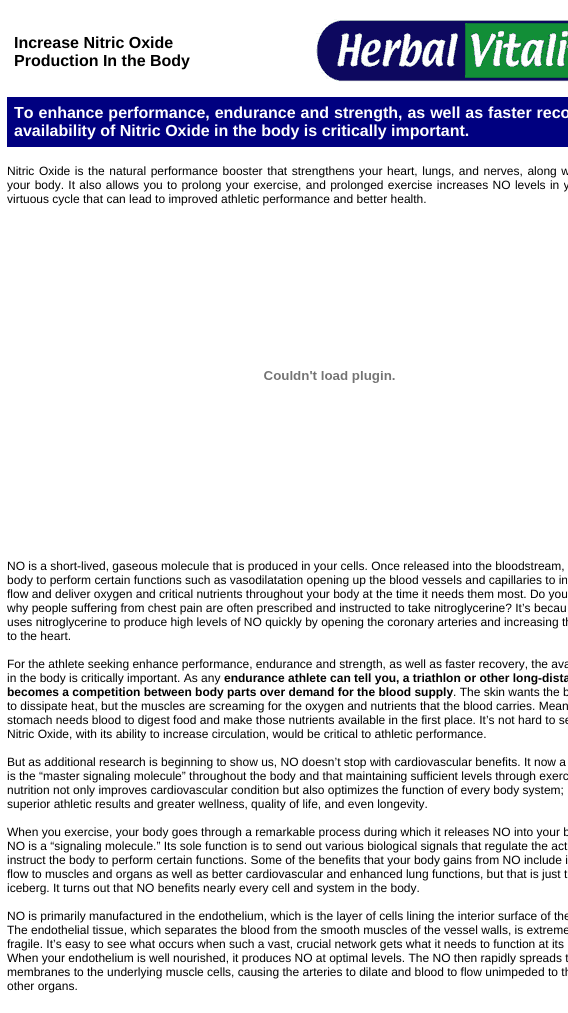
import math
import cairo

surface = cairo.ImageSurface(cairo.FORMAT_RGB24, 568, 1013)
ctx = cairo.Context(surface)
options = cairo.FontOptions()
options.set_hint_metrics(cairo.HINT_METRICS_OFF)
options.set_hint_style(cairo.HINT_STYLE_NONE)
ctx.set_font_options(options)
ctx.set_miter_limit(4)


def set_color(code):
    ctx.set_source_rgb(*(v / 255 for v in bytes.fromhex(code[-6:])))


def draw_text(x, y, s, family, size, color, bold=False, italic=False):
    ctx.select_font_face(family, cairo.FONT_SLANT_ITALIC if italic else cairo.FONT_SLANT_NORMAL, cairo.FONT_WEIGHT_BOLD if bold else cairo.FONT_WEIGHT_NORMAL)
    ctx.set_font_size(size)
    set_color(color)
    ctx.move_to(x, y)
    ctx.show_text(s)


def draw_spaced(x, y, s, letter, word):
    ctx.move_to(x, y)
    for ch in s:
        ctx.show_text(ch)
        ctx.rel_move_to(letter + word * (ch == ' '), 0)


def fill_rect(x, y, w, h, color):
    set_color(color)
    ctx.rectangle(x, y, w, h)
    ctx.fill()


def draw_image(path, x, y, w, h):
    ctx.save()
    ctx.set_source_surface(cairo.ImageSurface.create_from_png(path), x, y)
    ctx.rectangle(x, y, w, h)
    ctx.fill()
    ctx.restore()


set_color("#ffffff")
ctx.paint()
draw_text(14, 48, "Increase Nitric Oxide", "Liberation Sans", 16, "#000000", bold=True)
draw_text(14, 66, "Production In the Body", "Liberation Sans", 16, "#000000", bold=True)
draw_image("assets/img1.png", 316, 19, 252, 63)
fill_rect(7, 97, 561, 50, "#000080")
set_color("#ffffff")
draw_spaced(14, 118, "To enhance performance, endurance and", 0, 0.5)
draw_spaced(334, 118, "strength, as well as faster reco", 0, 0.5)
draw_text(14, 136, "availability of Nitric Oxide in the body is critically important.", "Liberation Sans", 16, "#ffffff", bold=True)
ctx.select_font_face("Liberation Sans")
ctx.set_font_size(12)
set_color("#000000")
draw_spaced(7, 175, "Nitric Oxide is the natural performance booster that strengthens your heart, lungs, and nerves, along w", 0, 1.25)
draw_spaced(7, 189, "your body. It also allows you to prolong your exercise, and prolonged exercise increases NO levels in y", 0, 1)
draw_text(7, 203, "virtuous cycle that can lead to improved athletic performance and better health.", "Liberation Sans", 12, "#000000")
draw_image("assets/img2.png", 264, 371, 131, 12)
draw_text(7, 570, "NO is a short-lived, gaseous molecule that is produced in your cells. Once released into the bloodstream,", "Liberation Sans", 12, "#000000")
draw_text(7, 584, "body to perform certain functions such as vasodilatation opening up the blood vessels and capillaries to in", "Liberation Sans", 12, "#000000")
draw_text(7, 598, "flow and deliver oxygen and critical nutrients throughout your body at the time it needs them most. Do you", "Liberation Sans", 12, "#000000")
draw_text(7, 612, "why people suffering from chest pain are often prescribed and instructed to take nitroglycerine? It’s becau", "Liberation Sans", 12, "#000000")
draw_text(7, 626, "uses nitroglycerine to produce high levels of NO quickly by opening the coronary arteries and increasing th", "Liberation Sans", 12, "#000000")
draw_text(7, 640, "to the heart.", "Liberation Sans", 12, "#000000")
draw_text(7, 668, "For the athlete seeking enhance performance, endurance and strength, as well as faster recovery, the ava", "Liberation Sans", 12, "#000000")
draw_text(7, 682, "in the body is critically important. As any", "Liberation Sans", 12, "#000000")
draw_text(224, 682, "endurance athlete can tell you, a triathlon or other long-dista", "Liberation Sans", 12, "#000000", bold=True)
draw_text(7, 696, "becomes a competition between body parts over demand for the blood supply", "Liberation Sans", 12, "#000000", bold=True)
draw_text(453, 696, ". The skin wants the b", "Liberation Sans", 12, "#000000")
draw_text(7, 710, "to dissipate heat, but the muscles are screaming for the oxygen and nutrients that the blood carries. Mean", "Liberation Sans", 12, "#000000")
draw_text(7, 724, "stomach needs blood to digest food and make those nutrients available in the first place. It’s not hard to se", "Liberation Sans", 12, "#000000")
draw_text(7, 738, "Nitric Oxide, with its ability to increase circulation, would be critical to athletic performance.", "Liberation Sans", 12, "#000000")
draw_text(7, 766, "But as additional research is beginning to show us, NO doesn’t stop with cardiovascular benefits. It now a", "Liberation Sans", 12, "#000000")
draw_text(7, 780, "is the “master signaling molecule” throughout the body and that maintaining sufficient levels through exerc", "Liberation Sans", 12, "#000000")
draw_text(7, 794, "nutrition not only improves cardiovascular condition but also optimizes the function of every body system;", "Liberation Sans", 12, "#000000")
draw_text(7, 808, "superior athletic results and greater wellness, quality of life, and even longevity.", "Liberation Sans", 12, "#000000")
draw_text(7, 836, "When you exercise, your body goes through a remarkable process during which it releases NO into your b", "Liberation Sans", 12, "#000000")
draw_text(7, 850, "NO is a “signaling molecule.” Its sole function is to send out various biological signals that regulate the act", "Liberation Sans", 12, "#000000")
draw_text(7, 864, "instruct the body to perform certain functions. Some of the benefits that your body gains from NO include i", "Liberation Sans", 12, "#000000")
draw_text(7, 878, "flow to muscles and organs as well as better cardiovascular and enhanced lung functions, but that is just t", "Liberation Sans", 12, "#000000")
draw_text(7, 892, "iceberg. It turns out that NO benefits nearly every cell and system in the body.", "Liberation Sans", 12, "#000000")
draw_text(7, 920, "NO is primarily manufactured in the endothelium, which is the layer of cells lining the interior surface of the", "Liberation Sans", 12, "#000000")
draw_text(7, 934, "The endothelial tissue, which separates the blood from the smooth muscles of the vessel walls, is extreme", "Liberation Sans", 12, "#000000")
draw_text(7, 948, "fragile. It’s easy to see what occurs when such a vast, crucial network gets what it needs to function at its", "Liberation Sans", 12, "#000000")
draw_text(7, 962, "When your endothelium is well nourished, it produces NO at optimal levels. The NO then rapidly spreads t", "Liberation Sans", 12, "#000000")
draw_text(7, 976, "membranes to the underlying muscle cells, causing the arteries to dilate and blood to flow unimpeded to th", "Liberation Sans", 12, "#000000")
draw_text(7, 990, "other organs.", "Liberation Sans", 12, "#000000")
surface.write_to_png("output.png")
